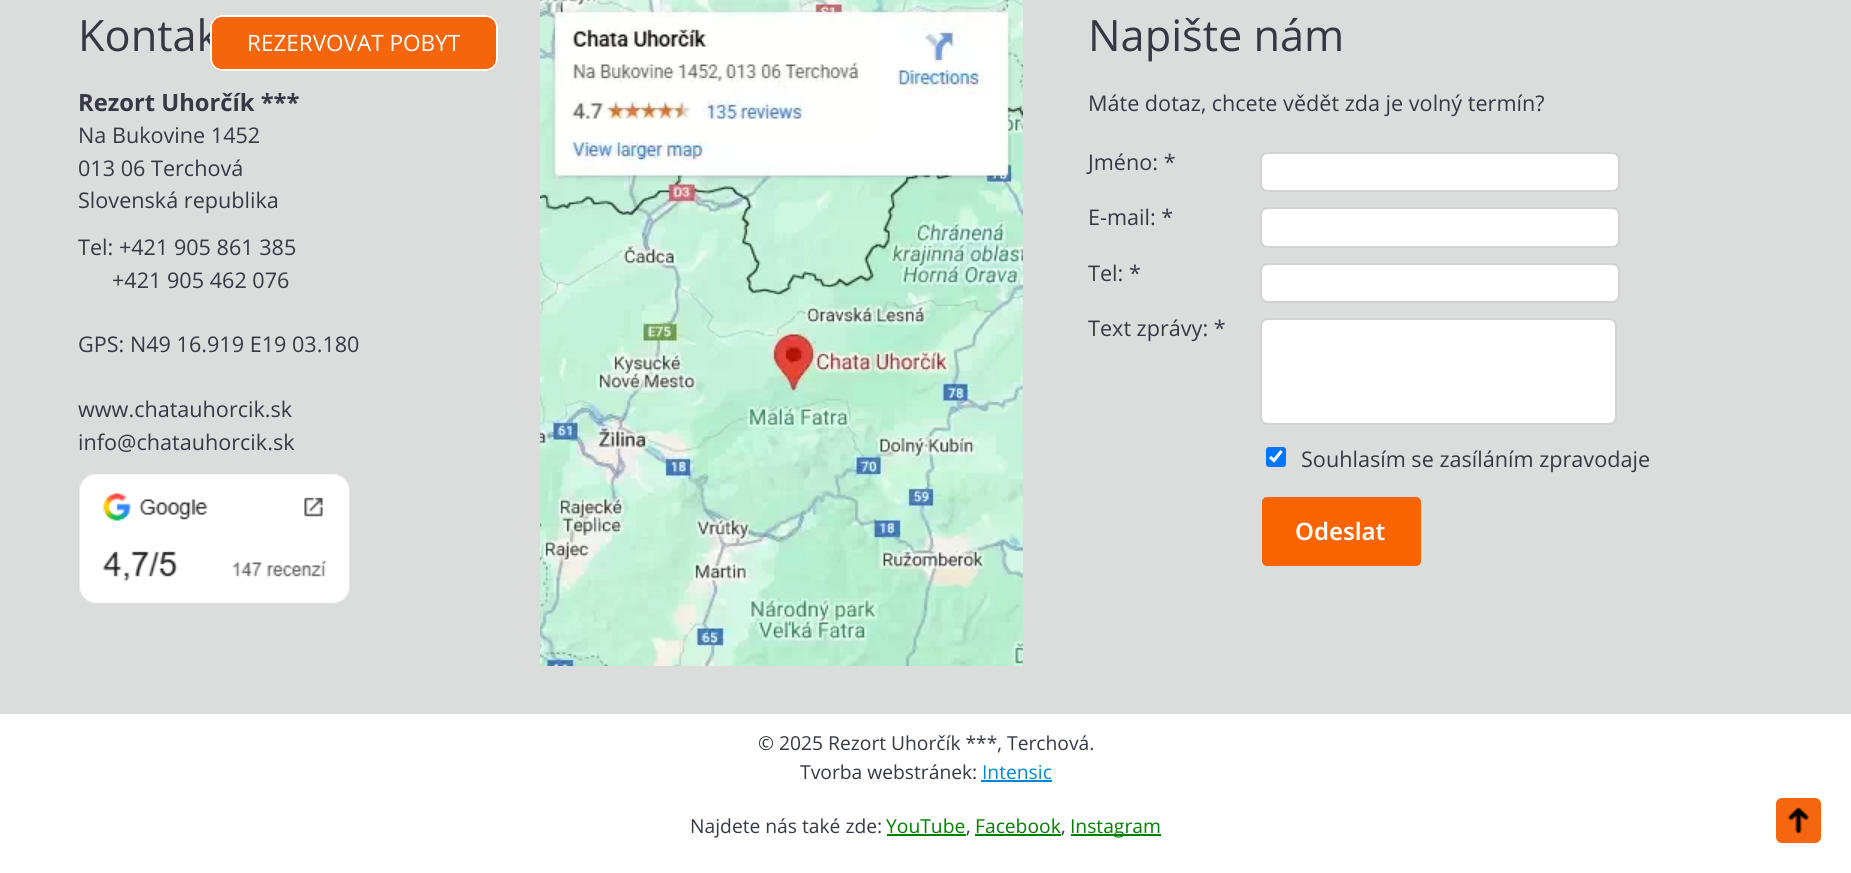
import math
import cairo

surface = cairo.ImageSurface(cairo.FORMAT_RGB24, 1851, 873)
ctx = cairo.Context(surface)
options = cairo.FontOptions()
options.set_hint_metrics(cairo.HINT_METRICS_OFF)
options.set_hint_style(cairo.HINT_STYLE_NONE)
ctx.set_font_options(options)
ctx.set_miter_limit(4)


def set_color(code):
    ctx.set_source_rgb(*(v / 255 for v in bytes.fromhex(code[-6:])))


def draw_text(x, y, s, family, size, color, bold=False, italic=False):
    ctx.select_font_face(family, cairo.FONT_SLANT_ITALIC if italic else cairo.FONT_SLANT_NORMAL, cairo.FONT_WEIGHT_BOLD if bold else cairo.FONT_WEIGHT_NORMAL)
    ctx.set_font_size(size)
    set_color(color)
    ctx.move_to(x, y)
    ctx.show_text(s)


def fill_rect(x, y, w, h, color):
    set_color(color)
    ctx.rectangle(x, y, w, h)
    ctx.fill()


def rounded_rect(x, y, w, h, r):
    ctx.new_sub_path()
    for i, (u, v) in enumerate([(x + w - r, y + h - r), (x + r, y + h - r), (x + r, y + r), (x + w - r, y + r)]):
        ctx.arc(u, v, r, i * math.pi / 2, (i + 1) * math.pi / 2)
    ctx.close_path()


def draw_image(path, x, y, w, h):
    ctx.save()
    ctx.set_source_surface(cairo.ImageSurface.create_from_png(path), x, y)
    ctx.rectangle(x, y, w, h)
    ctx.fill()
    ctx.restore()


set_color("#ffffff")
ctx.paint()
fill_rect(0, 0, 1851, 714, "#dbdcdc")
draw_text(78, 51, "Kontak", "Open Sans", 43.25, "#363945")
draw_text(78, 111, "Rezort Uhorčík ***", "Open Sans", 23.75, "#363945", bold=True)
draw_text(78, 143, "Na Bukovine 1452", "Open Sans", 21.6, "#363945")
draw_text(78, 176, "013 06 Terchová", "Open Sans", 21.6, "#363945")
draw_text(78, 208, "Slovenská republika", "Open Sans", 21.6, "#363945")
draw_text(78, 255, "Tel: +421 905 861 385", "Open Sans", 21.6, "#363945")
draw_text(112, 288, "+421 905 462 076", "Open Sans", 21.6, "#363945")
draw_text(78, 352, "GPS: N49 16.919 E19 03.180", "Open Sans", 21.6, "#363945")
draw_text(78, 417, "www.chatauhorcik.sk", "Open Sans", 21.6, "#363945")
draw_text(78, 450, "info@chatauhorcik.sk", "Open Sans", 21.6, "#363945")
draw_image("assets/img1.png", 78, 473, 273, 131)
draw_image("assets/img2.png", 540, 0, 483, 666)
draw_text(1088, 51, "Napište nám", "Open Sans", 43.25, "#363945")
draw_text(1088, 111, "Máte dotaz, chcete vědět zda je volný termín?", "Open Sans", 21.6, "#363945")
draw_text(1088, 170, "Jméno: *", "Open Sans", 21.6, "#363945")
set_color("#ffffff")
rounded_rect(1261, 153, 358, 38, 7)
ctx.fill_preserve()
set_color("#d2d2d2")
ctx.stroke()
draw_text(1088, 225, "E-mail: *", "Open Sans", 21.6, "#363945")
set_color("#ffffff")
rounded_rect(1261, 208, 358, 39, 7)
ctx.fill_preserve()
set_color("#d2d2d2")
ctx.stroke()
draw_text(1088, 281, "Tel: *", "Open Sans", 21.6, "#363945")
set_color("#ffffff")
rounded_rect(1261, 264, 358, 38, 7)
ctx.fill_preserve()
set_color("#d2d2d2")
ctx.stroke()
draw_text(1088, 336, "Text zprávy: *", "Open Sans", 21.6, "#363945")
set_color("#ffffff")
rounded_rect(1261, 319, 355, 105, 7)
ctx.fill_preserve()
set_color("#d2d2d2")
ctx.stroke()
set_color("#0075ff")
rounded_rect(1266, 447, 20, 20, 3)
ctx.fill()
ctx.new_path()
ctx.move_to(1270, 457)
ctx.line_to(1274, 460.5)
ctx.line_to(1281.5, 451)
set_color("#ffffff")
ctx.set_line_width(3.1)
ctx.stroke()
draw_text(1301, 467, "Souhlasím se zasíláním zpravodaje", "Open Sans", 21.6, "#363945")
set_color("#fa6400")
rounded_rect(1262, 497, 159, 69, 5)
ctx.fill()
draw_text(1295, 540, "Odeslat", "Noto Sans SemiBold", 24, "#ffffff")
ctx.set_source_rgba(0.961, 0.396, 0.051, 0.99)
rounded_rect(210, 15, 288, 56, 12)
ctx.fill()
rounded_rect(211, 16, 286, 54, 11)
ctx.set_source_rgba(1, 1, 1, 0.99)
ctx.set_line_width(2)
ctx.stroke()
ctx.set_source_rgba(0.961, 0.396, 0.051, 0.99)
rounded_rect(210, 15, 288, 56, 12)
ctx.fill()
rounded_rect(211, 16, 286, 54, 11)
ctx.set_source_rgba(1, 1, 1, 0.99)
ctx.stroke()
draw_text(247, 51, "REZERVOVAT POBYT", "Open Sans", 22.5, "#ffffff")
draw_text(758, 750, "© 2025 Rezort Uhorčík ***, Terchová.", "Open Sans", 19.25, "#363945")
draw_text(800, 779, "Tvorba webstránek:", "Open Sans", 19.25, "#363945")
draw_text(982, 779, "Intensic", "Open Sans", 19.25, "#0087d7")
fill_rect(981, 780, 71, 2, "#0087d7")
draw_text(690, 833, "Najdete nás také zde:", "Open Sans", 19.25, "#363945")
draw_text(886, 833, "YouTube", "Open Sans", 19.25, "#008000")
fill_rect(887, 834, 79, 2, "#008000")
draw_text(966, 833, ",", "Open Sans", 19.25, "#363945")
draw_text(975, 833, "Facebook", "Open Sans", 19.25, "#008000")
fill_rect(975, 834, 86, 2, "#008000")
draw_text(1061, 833, ",", "Open Sans", 19.25, "#363945")
fill_rect(1071, 834, 90, 2, "#008000")
draw_text(1070, 833, "Instagram", "Open Sans", 19.25, "#008000")
set_color("#f5660f")
rounded_rect(1776, 798, 45, 45, 6)
ctx.fill()
draw_image("assets/img3.png", 1787, 807, 23, 27)
surface.write_to_png("output.png")
